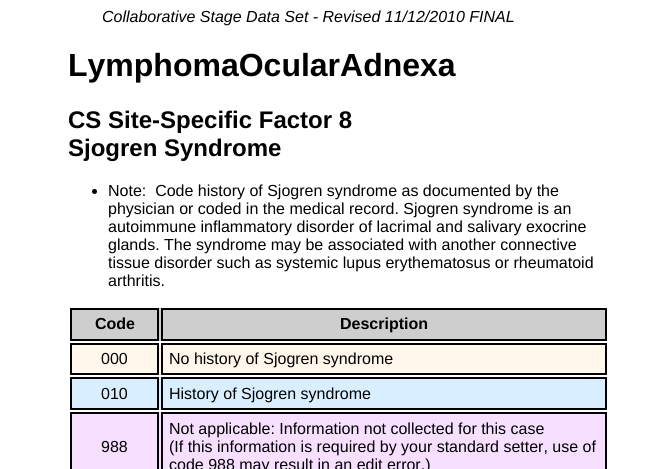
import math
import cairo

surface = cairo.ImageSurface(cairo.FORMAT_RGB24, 668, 469)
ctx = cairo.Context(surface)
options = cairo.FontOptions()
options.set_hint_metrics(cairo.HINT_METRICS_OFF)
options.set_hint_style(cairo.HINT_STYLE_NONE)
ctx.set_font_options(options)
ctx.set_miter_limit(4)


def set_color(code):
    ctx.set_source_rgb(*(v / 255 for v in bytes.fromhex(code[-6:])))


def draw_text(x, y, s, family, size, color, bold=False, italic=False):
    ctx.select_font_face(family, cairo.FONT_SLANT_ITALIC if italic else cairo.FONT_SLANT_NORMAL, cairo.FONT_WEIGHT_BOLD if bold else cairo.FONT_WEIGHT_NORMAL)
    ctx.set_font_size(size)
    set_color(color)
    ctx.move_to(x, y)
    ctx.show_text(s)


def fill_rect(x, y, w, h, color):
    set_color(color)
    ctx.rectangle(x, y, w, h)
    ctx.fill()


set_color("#ffffff")
ctx.paint()
draw_text(102, 22, "Collaborative Stage Data Set - Revised 11/12/2010 FINAL", "Liberation Sans", 16, "#000000", italic=True)
draw_text(68, 76, "LymphomaOcularAdnexa", "Liberation Sans", 32, "#000000", bold=True)
draw_text(68, 128, "CS Site-Specific Factor 8", "Liberation Sans", 24, "#000000", bold=True)
draw_text(68, 156, "Sjogren Syndrome", "Liberation Sans", 24, "#000000", bold=True)
ctx.new_path()
ctx.arc(94.5, 191.5, 2.5, 0, 2 * math.pi)
ctx.fill()
draw_text(108, 196, "Note:  Code history of Sjogren syndrome as documented by the", "Liberation Sans", 16, "#000000")
draw_text(108, 214, "physician or coded in the medical record. Sjogren syndrome is an", "Liberation Sans", 16, "#000000")
draw_text(108, 232, "autoimmune inflammatory disorder of lacrimal and salivary exocrine", "Liberation Sans", 16, "#000000")
draw_text(108, 250, "glands. The syndrome may be associated with another connective", "Liberation Sans", 16, "#000000")
draw_text(108, 268, "tissue disorder such as systemic lupus erythematosus or rheumatoid", "Liberation Sans", 16, "#000000")
draw_text(108, 286, "arthritis.", "Liberation Sans", 16, "#000000")
fill_rect(72, 308, 533, 33, "#cecece")
ctx.rectangle(71, 309, 87, 31)
set_color("#000000")
ctx.stroke()
draw_text(95, 329, "Code", "Liberation Sans", 16, "#000000", bold=True)
ctx.rectangle(162, 309, 444, 31)
ctx.stroke()
draw_text(340, 329, "Description", "Liberation Sans", 16, "#000000", bold=True)
fill_rect(72, 343, 533, 32, "#fff7ec")
ctx.rectangle(71, 344, 87, 30)
set_color("#000000")
ctx.stroke()
draw_text(101, 364, "000", "Liberation Sans", 16, "#000000")
ctx.rectangle(162, 344, 444, 30)
ctx.stroke()
draw_text(169, 364, "No history of Sjogren syndrome", "Liberation Sans", 16, "#000000")
fill_rect(72, 377, 533, 33, "#d9efff")
ctx.rectangle(71, 378, 87, 31)
set_color("#000000")
ctx.stroke()
draw_text(101, 399, "010", "Liberation Sans", 16, "#000000")
ctx.rectangle(162, 378, 444, 31)
ctx.stroke()
draw_text(169, 399, "History of Sjogren syndrome", "Liberation Sans", 16, "#000000")
fill_rect(72, 412, 533, 57, "#f6dfff")
ctx.rectangle(71, 413, 87, 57)
set_color("#000000")
ctx.stroke()
draw_text(101, 452, "988", "Liberation Sans", 16, "#000000")
ctx.rectangle(162, 413, 444, 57)
ctx.stroke()
draw_text(169, 434, "Not applicable: Information not collected for this case", "Liberation Sans", 16, "#000000")
draw_text(169, 452, "(If this information is required by your standard setter, use of", "Liberation Sans", 16, "#000000")
draw_text(169, 470, "code 988 may result in an edit error.)", "Liberation Sans", 16, "#000000")
surface.write_to_png("output.png")
